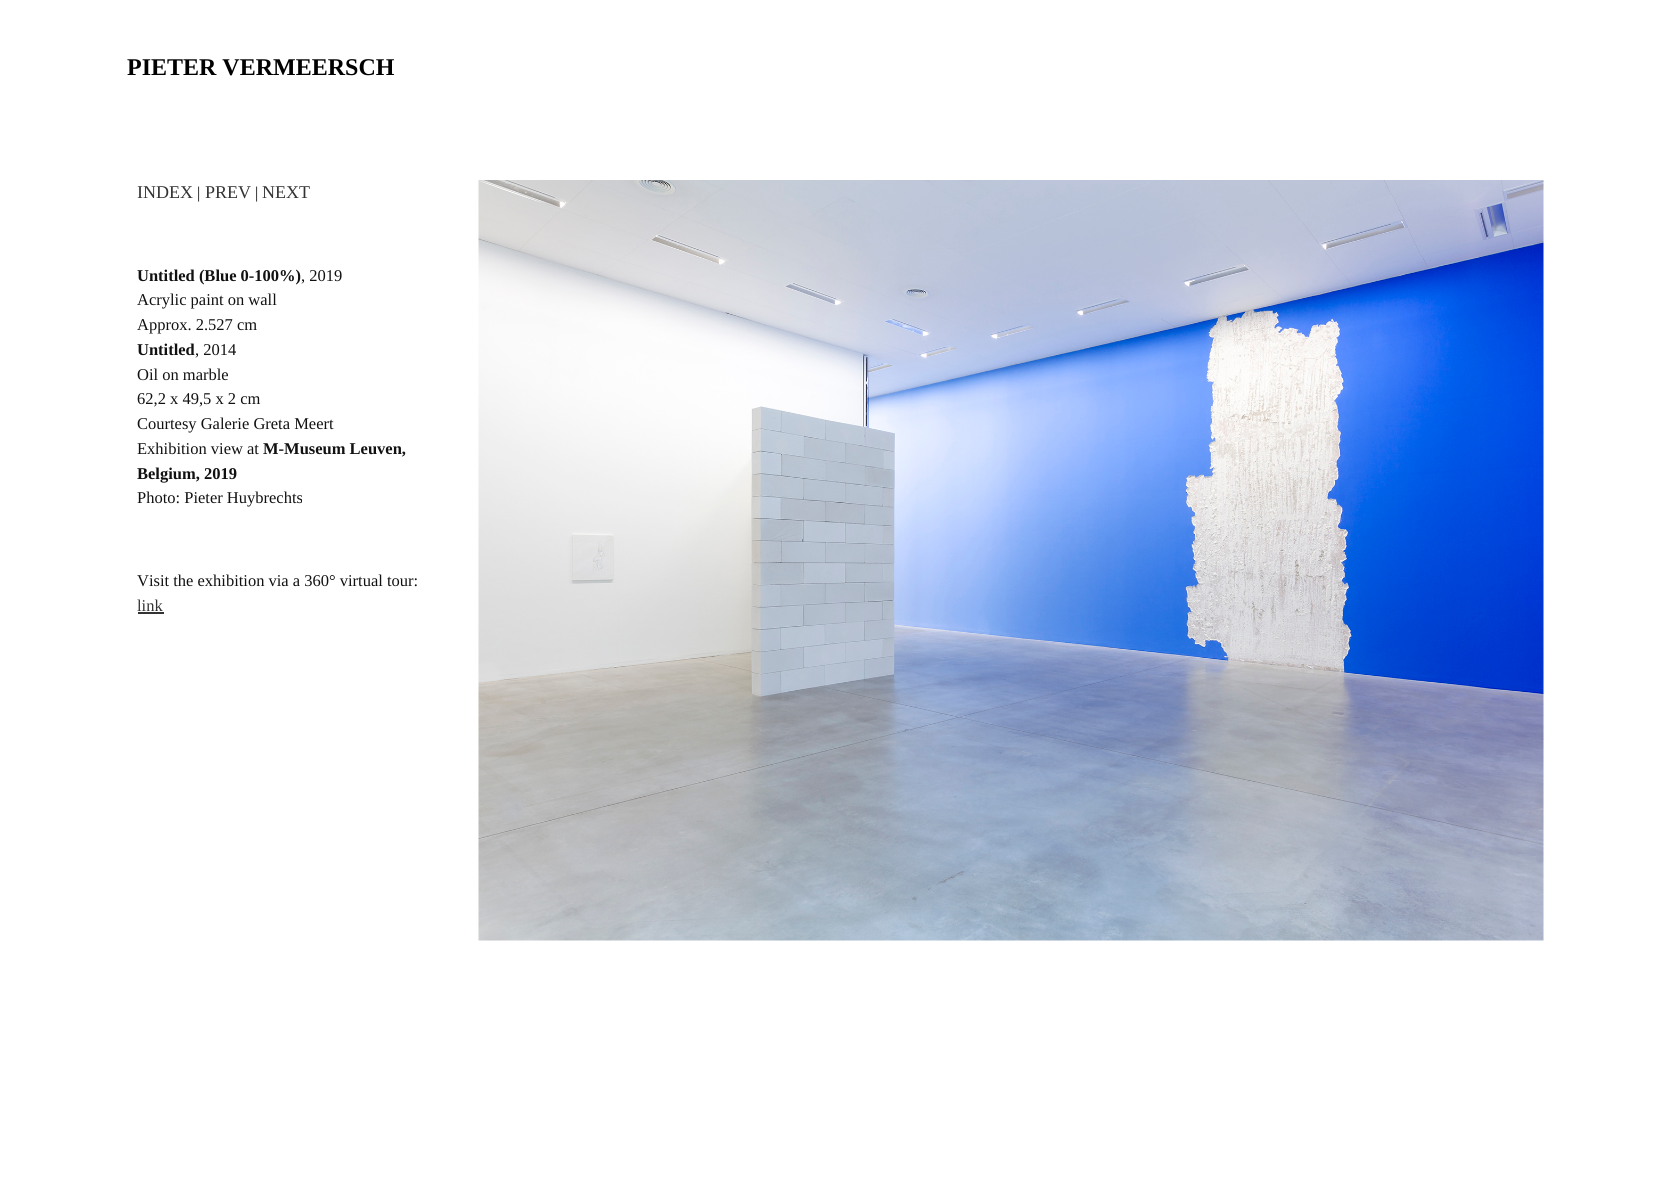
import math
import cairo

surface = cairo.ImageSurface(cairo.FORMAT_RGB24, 1669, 1189)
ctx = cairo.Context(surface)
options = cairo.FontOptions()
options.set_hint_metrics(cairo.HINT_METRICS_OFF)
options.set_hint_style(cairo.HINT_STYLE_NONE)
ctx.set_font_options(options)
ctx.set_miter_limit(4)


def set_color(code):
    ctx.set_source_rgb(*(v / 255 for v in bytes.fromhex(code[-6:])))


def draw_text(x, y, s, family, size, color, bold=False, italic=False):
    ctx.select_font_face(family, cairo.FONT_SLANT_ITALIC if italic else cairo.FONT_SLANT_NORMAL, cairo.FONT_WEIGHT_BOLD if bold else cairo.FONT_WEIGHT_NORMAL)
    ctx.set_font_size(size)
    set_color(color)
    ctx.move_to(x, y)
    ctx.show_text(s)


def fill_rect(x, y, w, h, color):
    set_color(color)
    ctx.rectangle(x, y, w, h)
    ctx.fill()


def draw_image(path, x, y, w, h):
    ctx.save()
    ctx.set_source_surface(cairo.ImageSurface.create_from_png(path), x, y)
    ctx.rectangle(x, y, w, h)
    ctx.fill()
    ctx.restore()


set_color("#ffffff")
ctx.paint()
draw_text(127, 75, "PIETER VERMEERSCH", "Liberation Serif", 24, "#000000", bold=True)
draw_text(137, 198, "INDEX", "Liberation Serif", 18, "#333333")
draw_text(197, 198, "|", "Liberation Serif", 16.5, "#111111")
draw_text(205, 198, "PREV", "Liberation Serif", 18, "#333333")
draw_text(255, 198, "|", "Liberation Serif", 16.5, "#111111")
draw_text(262, 198, "NEXT", "Liberation Serif", 18, "#333333")
draw_text(137, 281, "Untitled (Blue 0-100%)", "Liberation Serif", 16.5, "#111111", bold=True)
draw_text(301, 281, ", 2019", "Liberation Serif", 16.5, "#111111")
draw_text(137, 305, "Acrylic paint on wall", "Liberation Serif", 16.5, "#111111")
draw_text(137, 330, "Approx. 2.527 cm", "Liberation Serif", 16.5, "#111111")
draw_text(137, 355, "Untitled", "Liberation Serif", 16.5, "#111111", bold=True)
draw_text(195, 355, ", 2014", "Liberation Serif", 16.5, "#111111")
draw_text(137, 380, "Oil on marble", "Liberation Serif", 16.5, "#111111")
draw_text(137, 404, "62,2 x 49,5 x 2 cm", "Liberation Serif", 16.5, "#111111")
draw_text(137, 429, "Courtesy Galerie Greta Meert", "Liberation Serif", 16.5, "#111111")
draw_text(137, 454, "Exhibition view at", "Liberation Serif", 16.5, "#111111")
draw_text(263, 454, "M-Museum Leuven,", "Liberation Serif", 16.5, "#111111", bold=True)
draw_text(137, 479, "Belgium, 2019", "Liberation Serif", 16.5, "#111111", bold=True)
draw_text(137, 503, "Photo: Pieter Huybrechts", "Liberation Serif", 16.5, "#111111")
draw_text(137, 586, "Visit the exhibition via a 360° virtual tour:", "Liberation Serif", 16.5, "#111111")
draw_text(137, 611, "link", "Liberation Serif", 16.5, "#333333")
fill_rect(138, 612, 26, 2, "#333333")
draw_image("assets/img1.png", 478, 180, 1066, 761)
surface.write_to_png("output.png")
